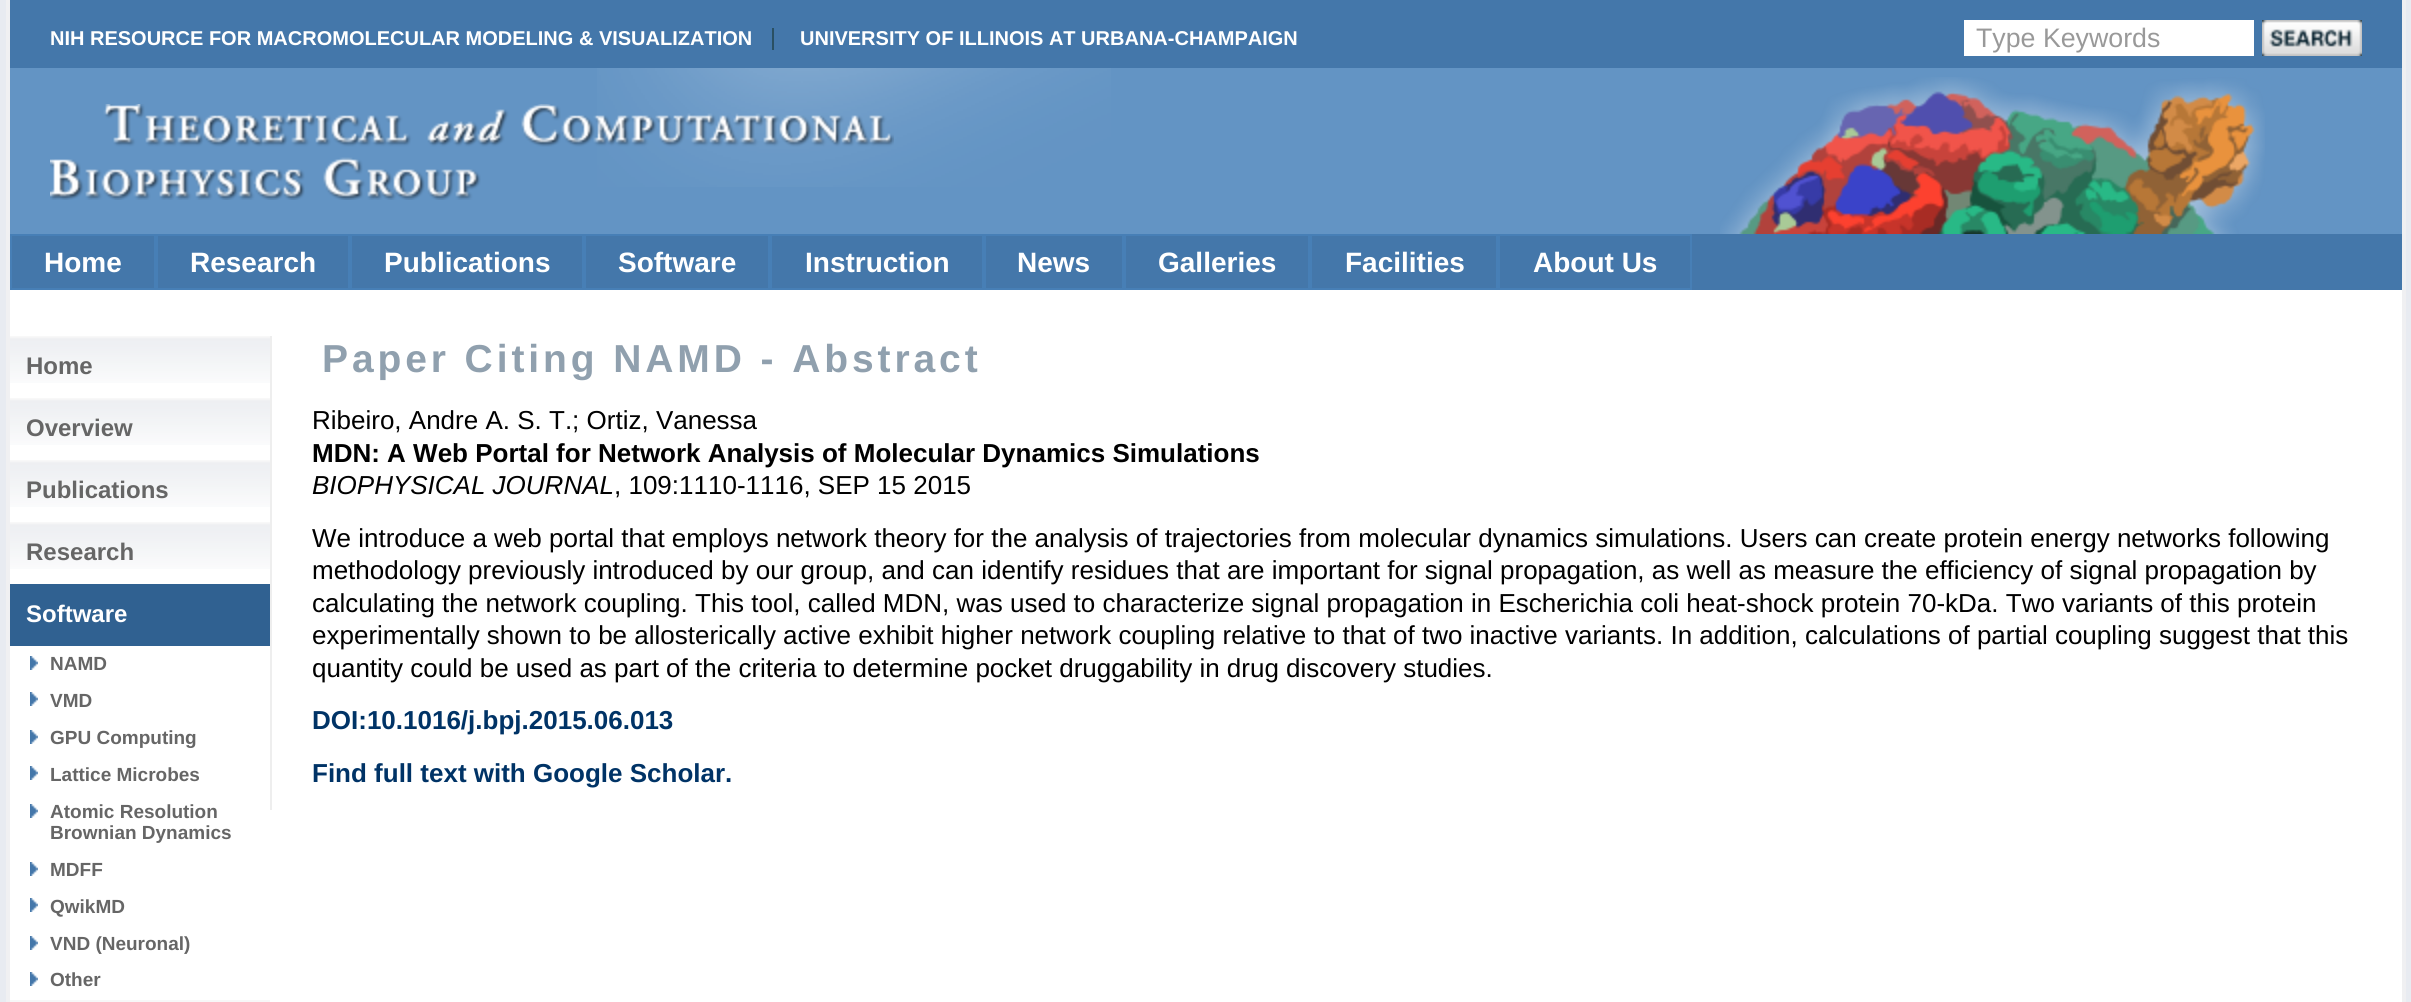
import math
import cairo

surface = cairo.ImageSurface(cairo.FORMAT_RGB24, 2411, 1002)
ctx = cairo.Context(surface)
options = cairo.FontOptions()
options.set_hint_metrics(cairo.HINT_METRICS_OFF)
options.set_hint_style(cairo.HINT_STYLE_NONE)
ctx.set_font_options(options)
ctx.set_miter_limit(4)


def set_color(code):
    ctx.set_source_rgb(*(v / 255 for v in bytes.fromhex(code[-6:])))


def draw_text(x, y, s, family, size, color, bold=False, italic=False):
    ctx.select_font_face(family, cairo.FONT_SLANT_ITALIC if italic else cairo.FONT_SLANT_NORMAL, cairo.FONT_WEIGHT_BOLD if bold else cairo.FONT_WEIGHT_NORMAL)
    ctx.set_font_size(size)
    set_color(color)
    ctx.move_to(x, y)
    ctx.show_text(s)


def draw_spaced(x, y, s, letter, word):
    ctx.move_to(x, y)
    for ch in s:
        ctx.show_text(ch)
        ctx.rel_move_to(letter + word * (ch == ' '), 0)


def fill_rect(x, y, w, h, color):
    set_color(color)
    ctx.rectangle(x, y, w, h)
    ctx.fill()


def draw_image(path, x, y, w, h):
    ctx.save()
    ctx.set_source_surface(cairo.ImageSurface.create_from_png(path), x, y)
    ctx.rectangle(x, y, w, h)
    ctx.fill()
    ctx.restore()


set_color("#e8ebf1")
ctx.paint()
fill_rect(10, 290, 2392, 712, "#ffffff")
fill_rect(2402, 0, 4, 1002, "#f0f0f2")
fill_rect(6, 0, 4, 1002, "#f0f0f2")
fill_rect(10, 68, 2392, 166, "#6394c4")
draw_image("assets/img1.png", 597, 68, 514, 119)
fill_rect(10, 0, 2392, 68, "#4477aa")
draw_text(50, 45, "NIH RESOURCE FOR MACROMOLECULAR MODELING & VISUALIZATION", "Liberation Sans", 20, "#ffffff", bold=True)
fill_rect(772, 28, 2, 22, "#2a5063")
draw_text(800, 45, "UNIVERSITY OF ILLINOIS AT URBANA-CHAMPAIGN", "Liberation Sans", 20, "#ffffff", bold=True)
fill_rect(1964, 20, 290, 36, "#ffffff")
draw_text(1976, 47, "Type Keywords", "Liberation Sans", 26.75, "#999999")
draw_image("assets/img2.png", 2262, 20, 100, 36)
draw_image("assets/img3.png", 1720, 77, 545, 157)
draw_image("assets/img4.png", 50, 104, 844, 96)
fill_rect(12, 234, 2390, 56, "#4477aa")
ctx.rectangle(11, 235, 144, 54)
set_color("#477fb6")
ctx.stroke()
draw_text(44, 272, "Home", "Liberation Sans", 28, "#ffffff", bold=True)
ctx.rectangle(157, 235, 192, 54)
set_color("#477fb6")
ctx.stroke()
draw_text(190, 272, "Research", "Liberation Sans", 28, "#ffffff", bold=True)
ctx.rectangle(351, 235, 232, 54)
set_color("#477fb6")
ctx.stroke()
draw_text(384, 272, "Publications", "Liberation Sans", 28, "#ffffff", bold=True)
ctx.rectangle(585, 235, 184, 54)
set_color("#477fb6")
ctx.stroke()
draw_text(618, 272, "Software", "Liberation Sans", 28, "#ffffff", bold=True)
ctx.rectangle(771, 235, 212, 54)
set_color("#477fb6")
ctx.stroke()
draw_text(805, 272, "Instruction", "Liberation Sans", 28, "#ffffff", bold=True)
ctx.rectangle(985, 235, 138, 54)
set_color("#477fb6")
ctx.stroke()
draw_text(1017, 272, "News", "Liberation Sans", 28, "#ffffff", bold=True)
ctx.rectangle(1125, 235, 184, 54)
set_color("#477fb6")
ctx.stroke()
draw_text(1158, 272, "Galleries", "Liberation Sans", 28, "#ffffff", bold=True)
ctx.rectangle(1311, 235, 186, 54)
set_color("#477fb6")
ctx.stroke()
draw_text(1345, 272, "Facilities", "Liberation Sans", 28, "#ffffff", bold=True)
ctx.rectangle(1499, 235, 192, 54)
set_color("#477fb6")
ctx.stroke()
draw_text(1533, 272, "About Us", "Liberation Sans", 28, "#ffffff", bold=True)
draw_image("assets/img5.png", 10, 336, 260, 47)
draw_text(26, 374, "Home", "Liberation Sans", 24, "#666666", bold=True)
draw_image("assets/img5.png", 10, 398, 260, 47)
draw_text(26, 436, "Overview", "Liberation Sans", 24, "#666666", bold=True)
draw_image("assets/img5.png", 10, 460, 260, 47)
draw_text(26, 498, "Publications", "Liberation Sans", 24, "#666666", bold=True)
draw_image("assets/img5.png", 10, 522, 260, 47)
draw_text(26, 560, "Research", "Liberation Sans", 24, "#666666", bold=True)
fill_rect(10, 584, 260, 62, "#306191")
draw_text(26, 622, "Software", "Liberation Sans", 24, "#ffffff", bold=True)
draw_image("assets/img6.png", 30, 656, 8, 14)
draw_text(50, 670, "NAMD", "Liberation Sans", 19, "#666666", bold=True)
draw_image("assets/img6.png", 30, 692, 8, 14)
draw_text(50, 707, "VMD", "Liberation Sans", 19, "#666666", bold=True)
draw_image("assets/img6.png", 30, 730, 8, 14)
draw_text(50, 744, "GPU Computing", "Liberation Sans", 19, "#666666", bold=True)
draw_image("assets/img6.png", 30, 766, 8, 14)
draw_text(50, 781, "Lattice Microbes", "Liberation Sans", 19, "#666666", bold=True)
draw_image("assets/img6.png", 30, 804, 8, 14)
draw_text(50, 818, "Atomic Resolution", "Liberation Sans", 19, "#666666", bold=True)
draw_text(50, 839, "Brownian Dynamics", "Liberation Sans", 19, "#666666", bold=True)
draw_image("assets/img6.png", 30, 862, 8, 14)
draw_text(50, 876, "MDFF", "Liberation Sans", 19, "#666666", bold=True)
draw_image("assets/img6.png", 30, 898, 8, 14)
draw_text(50, 913, "QwikMD", "Liberation Sans", 19, "#666666", bold=True)
draw_image("assets/img6.png", 30, 936, 8, 14)
draw_text(50, 950, "VND (Neuronal)", "Liberation Sans", 19, "#666666", bold=True)
draw_image("assets/img6.png", 30, 972, 8, 14)
draw_text(50, 986, "Other", "Liberation Sans", 19, "#666666", bold=True)
fill_rect(10, 1000, 260, 2, "#f7f7f7")
fill_rect(270, 336, 2, 474, "#eeeeee")
ctx.set_font_size(39)
set_color("#90a0ae")
draw_spaced(322, 372, "Paper Citing NAMD - Abstract", 3.9, 0)
draw_text(312, 429, "Ribeiro, Andre A. S. T.; Ortiz, Vanessa", "Liberation Sans", 26, "#000000")
draw_text(312, 462, "MDN: A Web Portal for Network Analysis of Molecular Dynamics Simulations", "Liberation Sans", 26, "#000000", bold=True)
draw_text(312, 494, "BIOPHYSICAL JOURNAL", "Liberation Sans", 26, "#000000", italic=True)
draw_text(614, 494, ", 109:1110-1116, SEP 15 2015", "Liberation Sans", 26, "#000000")
draw_text(312, 547, "We introduce a web portal that employs network theory for the analysis of trajectories from molecular dynamics simulations. Users can create protein energy networks following", "Liberation Sans", 26, "#000000")
draw_text(312, 579, "methodology previously introduced by our group, and can identify residues that are important for signal propagation, as well as measure the efficiency of signal propagation by", "Liberation Sans", 26, "#000000")
draw_text(312, 612, "calculating the network coupling. This tool, called MDN, was used to characterize signal propagation in Escherichia coli heat-shock protein 70-kDa. Two variants of this protein", "Liberation Sans", 26, "#000000")
draw_text(312, 644, "experimentally shown to be allosterically active exhibit higher network coupling relative to that of two inactive variants. In addition, calculations of partial coupling suggest that this", "Liberation Sans", 26, "#000000")
draw_text(312, 677, "quantity could be used as part of the criteria to determine pocket druggability in drug discovery studies.", "Liberation Sans", 26, "#000000")
draw_text(312, 729, "DOI:10.1016/j.bpj.2015.06.013", "Liberation Sans", 26, "#003366", bold=True)
draw_text(312, 782, "Find full text with Google Scholar.", "Liberation Sans", 26, "#003366", bold=True)
surface.write_to_png("output.png")
